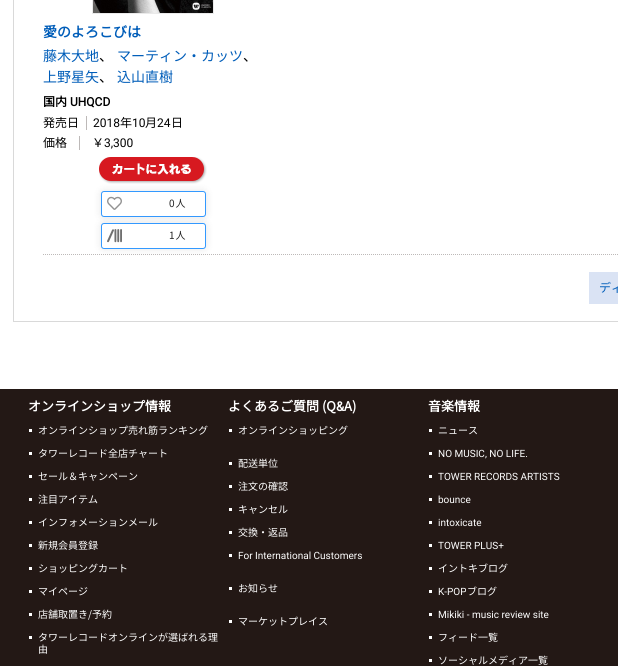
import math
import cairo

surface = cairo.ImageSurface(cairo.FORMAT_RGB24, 618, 666)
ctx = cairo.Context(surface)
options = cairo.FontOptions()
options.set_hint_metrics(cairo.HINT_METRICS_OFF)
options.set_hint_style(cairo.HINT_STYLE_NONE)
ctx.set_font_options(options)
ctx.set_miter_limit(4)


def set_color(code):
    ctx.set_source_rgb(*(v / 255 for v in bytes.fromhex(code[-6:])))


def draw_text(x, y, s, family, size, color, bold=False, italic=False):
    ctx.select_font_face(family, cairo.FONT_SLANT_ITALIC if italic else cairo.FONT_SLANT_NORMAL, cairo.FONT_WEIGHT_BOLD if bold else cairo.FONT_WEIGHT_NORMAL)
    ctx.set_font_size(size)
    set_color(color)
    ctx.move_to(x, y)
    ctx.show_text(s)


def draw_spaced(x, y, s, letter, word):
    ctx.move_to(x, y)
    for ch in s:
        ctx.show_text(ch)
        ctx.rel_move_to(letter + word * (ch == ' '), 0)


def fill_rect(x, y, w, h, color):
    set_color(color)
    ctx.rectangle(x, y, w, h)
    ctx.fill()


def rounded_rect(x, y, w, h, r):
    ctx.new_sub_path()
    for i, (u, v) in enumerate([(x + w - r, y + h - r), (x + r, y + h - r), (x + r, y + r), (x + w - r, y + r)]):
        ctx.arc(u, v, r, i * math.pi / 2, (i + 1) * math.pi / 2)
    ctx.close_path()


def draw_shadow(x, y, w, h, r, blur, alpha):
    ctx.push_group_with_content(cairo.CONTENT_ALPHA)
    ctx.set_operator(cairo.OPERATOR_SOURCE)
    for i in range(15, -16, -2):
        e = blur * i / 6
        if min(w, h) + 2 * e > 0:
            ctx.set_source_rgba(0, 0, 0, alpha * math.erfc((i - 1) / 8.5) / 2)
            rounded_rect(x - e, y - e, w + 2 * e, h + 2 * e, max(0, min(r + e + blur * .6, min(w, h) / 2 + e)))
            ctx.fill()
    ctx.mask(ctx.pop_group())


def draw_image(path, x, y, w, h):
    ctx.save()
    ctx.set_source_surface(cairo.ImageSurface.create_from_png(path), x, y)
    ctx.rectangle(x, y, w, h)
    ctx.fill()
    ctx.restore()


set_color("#ffffff")
ctx.paint()
fill_rect(13, 0, 1, 322, "#d9d9d9")
fill_rect(14, 321, 604, 1, "#d9d9d9")
ctx.new_path()
ctx.move_to(43, 254.5)
ctx.line_to(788, 254.5)
set_color("#bdb9b8")
ctx.set_line_width(1)
ctx.set_dash([1, 1])
ctx.stroke()
ctx.rectangle(92.5, -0.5, 121, 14)
set_color("#eaeaea")
ctx.set_dash([])
ctx.stroke()
draw_image("assets/img1.png", 93, 0, 120, 13)
draw_text(43, 37, "愛のよろこびは", "Noto Sans JP", 14, "#005db9", bold=True)
draw_text(43, 61, "藤木大地", "Noto Sans JP Thin", 14, "#005db9")
draw_text(99, 61, "、", "Noto Sans JP Thin", 14, "#000000")
draw_text(117, 61, "マーティン・カッツ", "Noto Sans JP Thin", 14, "#005db9")
draw_text(243, 61, "、", "Noto Sans JP Thin", 14, "#000000")
draw_text(43, 82, "上野星矢", "Noto Sans JP Thin", 14, "#005db9")
draw_text(99, 82, "、", "Noto Sans JP Thin", 14, "#000000")
draw_text(117, 82, "込山直樹", "Noto Sans JP Thin", 14, "#005db9")
draw_text(43, 106, "国内", "Noto Sans JP", 12, "#000000", bold=True)
draw_text(70, 106, "UHQCD", "Roboto", 12, "#000000", bold=True)
fill_rect(86, 116, 1, 14, "#bdb9b8")
draw_text(43, 127, "発売日", "Noto Sans JP Thin", 12, "#000000")
draw_text(93, 127, "2018", "Roboto", 12, "#000000")
draw_text(120, 127, "年", "Noto Sans JP Thin", 12, "#000000")
draw_text(132, 127, "10", "Roboto", 12, "#000000")
draw_text(145, 127, "月", "Noto Sans JP Thin", 12, "#000000")
draw_text(157, 127, "24", "Roboto", 12, "#000000")
draw_text(171, 127, "日", "Noto Sans JP Thin", 12, "#000000")
fill_rect(79, 136, 1, 14, "#bdb9b8")
draw_text(43, 147, "価格", "Noto Sans JP Thin", 12, "#000000")
draw_text(92, 147, "￥", "Noto Sans JP Thin", 12, "#000000")
draw_text(104, 147, "3,300", "Roboto", 12, "#000000")
draw_image("assets/img2.png", 99, 157, 108, 27)
set_color("#000000")
draw_shadow(101, 191, 105, 26, 3, 4, 0.1)
set_color("#ffffff")
rounded_rect(101.5, 191.5, 104, 25, 2.5)
ctx.fill_preserve()
set_color("#3399ff")
ctx.stroke()
draw_image("assets/img3.png", 107, 196, 15, 14)
ctx.select_font_face("Noto Sans JP Thin")
ctx.set_font_size(10)
set_color("#232323")
draw_spaced(169, 207, "0人", 1, 0)
set_color("#000000")
draw_shadow(101, 223, 105, 26, 3, 4, 0.1)
set_color("#ffffff")
rounded_rect(101.5, 223.5, 104, 25, 2.5)
ctx.fill_preserve()
set_color("#3399ff")
ctx.stroke()
draw_image("assets/img4.png", 107, 229, 15, 14)
set_color("#232323")
draw_spaced(169, 239, "1人", 1, 0)
fill_rect(589, 272, 29, 32, "#dae3f4")
draw_text(599, 292, "ディ", "Noto Sans JP Thin", 12, "#005db9")
fill_rect(0, 389, 618, 277, "#231815")
draw_text(28, 411, "オンラインショップ情報", "Noto Sans JP", 13, "#ffffff", bold=True)
fill_rect(29, 429, 3, 3, "#ffffff")
draw_text(38, 434, "オンラインショップ売れ筋ランキング", "Noto Sans JP Thin", 10, "#ffffff")
fill_rect(29, 452, 3, 3, "#ffffff")
draw_text(38, 457, "タワーレコード全店チャート", "Noto Sans JP Thin", 10, "#ffffff")
fill_rect(29, 475, 3, 3, "#ffffff")
draw_text(38, 480, "セール＆キャンペーン", "Noto Sans JP Thin", 10, "#ffffff")
fill_rect(29, 498, 3, 3, "#ffffff")
draw_text(38, 503, "注目アイテム", "Noto Sans JP Thin", 10, "#ffffff")
fill_rect(29, 521, 3, 3, "#ffffff")
draw_text(38, 526, "インフォメーションメール", "Noto Sans JP Thin", 10, "#ffffff")
fill_rect(29, 544, 3, 3, "#ffffff")
draw_text(38, 549, "新規会員登録", "Noto Sans JP Thin", 10, "#ffffff")
fill_rect(29, 567, 3, 3, "#ffffff")
draw_text(38, 572, "ショッピングカート", "Noto Sans JP Thin", 10, "#ffffff")
fill_rect(29, 590, 3, 3, "#ffffff")
draw_text(38, 595, "マイページ", "Noto Sans JP Thin", 10, "#ffffff")
fill_rect(29, 613, 3, 3, "#ffffff")
draw_text(38, 618, "店舗取置き/予約", "Noto Sans JP Thin", 10, "#ffffff")
fill_rect(29, 636, 3, 3, "#ffffff")
draw_text(38, 641, "タワーレコードオンラインが選ばれる理", "Noto Sans JP Thin", 10, "#ffffff")
draw_text(38, 653, "由", "Noto Sans JP Thin", 10, "#ffffff")
draw_text(228, 411, "よくあるご質問 (Q", "Noto Sans JP", 13, "#ffffff", bold=True)
draw_text(336, 411, "&", "Roboto", 13, "#ffffff", bold=True)
draw_text(344, 411, "A)", "Noto Sans JP", 13, "#ffffff", bold=True)
fill_rect(229, 429, 3, 3, "#ffffff")
draw_text(238, 434, "オンラインショッピング", "Noto Sans JP Thin", 10, "#ffffff")
fill_rect(229, 462, 3, 3, "#ffffff")
draw_text(238, 467, "配送単位", "Noto Sans JP Thin", 10, "#ffffff")
fill_rect(229, 485, 3, 3, "#ffffff")
draw_text(238, 490, "注文の確認", "Noto Sans JP Thin", 10, "#ffffff")
fill_rect(229, 508, 3, 3, "#ffffff")
draw_text(238, 513, "キャンセル", "Noto Sans JP Thin", 10, "#ffffff")
fill_rect(229, 531, 3, 3, "#ffffff")
draw_text(238, 536, "交換・返品", "Noto Sans JP Thin", 10, "#ffffff")
fill_rect(229, 554, 3, 3, "#ffffff")
draw_text(238, 559, "For International Customers", "Roboto", 10, "#ffffff")
fill_rect(229, 587, 3, 3, "#ffffff")
draw_text(238, 592, "お知らせ", "Noto Sans JP Thin", 10, "#ffffff")
fill_rect(229, 620, 3, 3, "#ffffff")
draw_text(238, 625, "マーケットプレイス", "Noto Sans JP Thin", 10, "#ffffff")
draw_text(428, 411, "音楽情報", "Noto Sans JP", 13, "#ffffff", bold=True)
fill_rect(429, 429, 3, 3, "#ffffff")
draw_text(438, 434, "ニュース", "Noto Sans JP Thin", 10, "#ffffff")
fill_rect(429, 452, 3, 3, "#ffffff")
draw_text(438, 457, "NO MUSIC, NO LIFE.", "Roboto", 10, "#ffffff")
fill_rect(429, 475, 3, 3, "#ffffff")
draw_text(438, 480, "TOWER RECORDS ARTISTS", "Roboto", 10, "#ffffff")
fill_rect(429, 498, 3, 3, "#ffffff")
draw_text(438, 503, "bounce", "Roboto", 10, "#ffffff")
fill_rect(429, 521, 3, 3, "#ffffff")
draw_text(438, 526, "intoxicate", "Roboto", 10, "#ffffff")
fill_rect(429, 544, 3, 3, "#ffffff")
draw_text(438, 549, "TOWER PLUS+", "Roboto", 10, "#ffffff")
fill_rect(429, 567, 3, 3, "#ffffff")
draw_text(438, 572, "イントキブログ", "Noto Sans JP Thin", 10, "#ffffff")
fill_rect(429, 590, 3, 3, "#ffffff")
draw_text(438, 595, "K-POP", "Roboto", 10, "#ffffff")
draw_text(467, 595, "ブログ", "Noto Sans JP Thin", 10, "#ffffff")
fill_rect(429, 613, 3, 3, "#ffffff")
draw_text(438, 618, "Mikiki - music review site", "Roboto", 10, "#ffffff")
fill_rect(429, 636, 3, 3, "#ffffff")
draw_text(438, 641, "フィード一覧", "Noto Sans JP Thin", 10, "#ffffff")
fill_rect(429, 659, 3, 3, "#ffffff")
draw_text(438, 664, "ソーシャルメディア一覧", "Noto Sans JP Thin", 10, "#ffffff")
surface.write_to_png("output.png")
